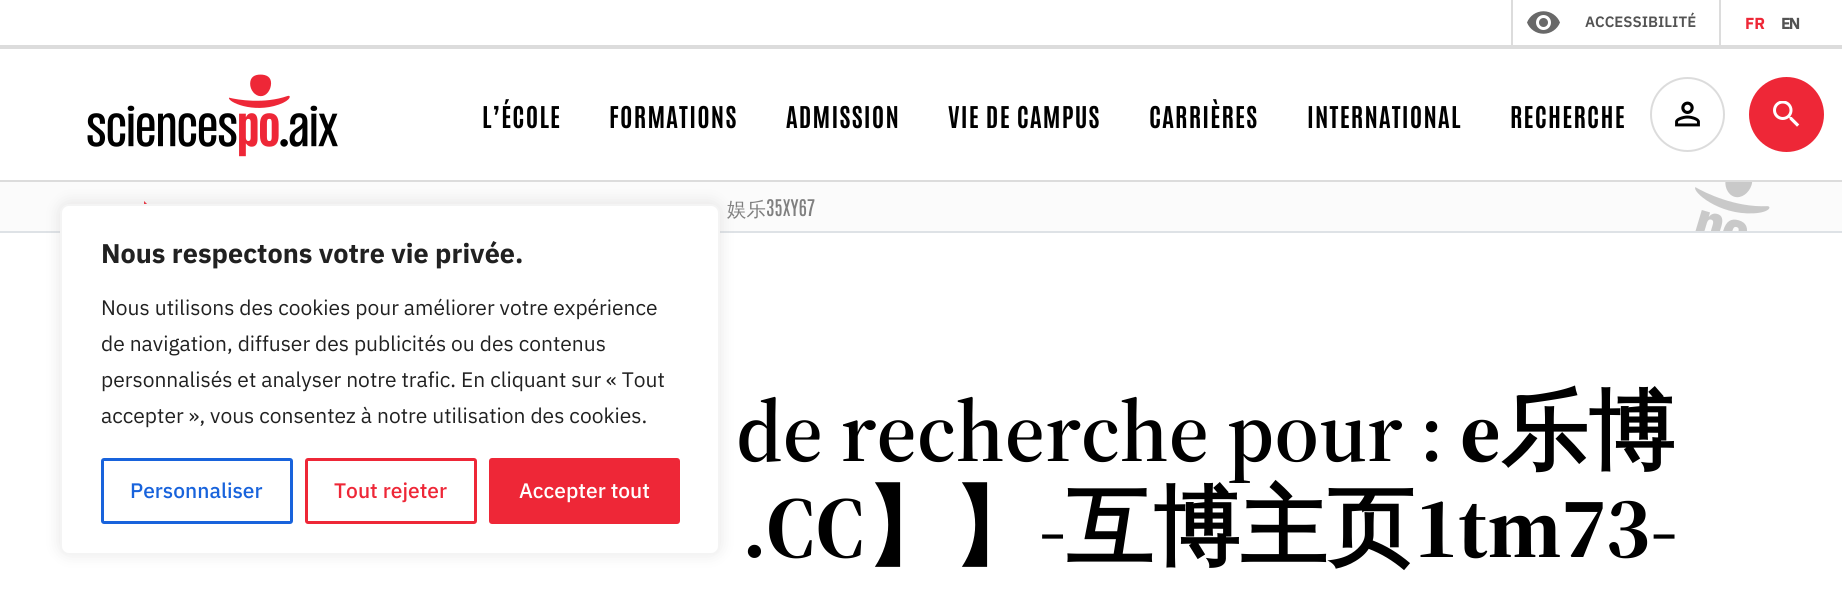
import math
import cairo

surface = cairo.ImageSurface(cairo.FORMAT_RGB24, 1842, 615)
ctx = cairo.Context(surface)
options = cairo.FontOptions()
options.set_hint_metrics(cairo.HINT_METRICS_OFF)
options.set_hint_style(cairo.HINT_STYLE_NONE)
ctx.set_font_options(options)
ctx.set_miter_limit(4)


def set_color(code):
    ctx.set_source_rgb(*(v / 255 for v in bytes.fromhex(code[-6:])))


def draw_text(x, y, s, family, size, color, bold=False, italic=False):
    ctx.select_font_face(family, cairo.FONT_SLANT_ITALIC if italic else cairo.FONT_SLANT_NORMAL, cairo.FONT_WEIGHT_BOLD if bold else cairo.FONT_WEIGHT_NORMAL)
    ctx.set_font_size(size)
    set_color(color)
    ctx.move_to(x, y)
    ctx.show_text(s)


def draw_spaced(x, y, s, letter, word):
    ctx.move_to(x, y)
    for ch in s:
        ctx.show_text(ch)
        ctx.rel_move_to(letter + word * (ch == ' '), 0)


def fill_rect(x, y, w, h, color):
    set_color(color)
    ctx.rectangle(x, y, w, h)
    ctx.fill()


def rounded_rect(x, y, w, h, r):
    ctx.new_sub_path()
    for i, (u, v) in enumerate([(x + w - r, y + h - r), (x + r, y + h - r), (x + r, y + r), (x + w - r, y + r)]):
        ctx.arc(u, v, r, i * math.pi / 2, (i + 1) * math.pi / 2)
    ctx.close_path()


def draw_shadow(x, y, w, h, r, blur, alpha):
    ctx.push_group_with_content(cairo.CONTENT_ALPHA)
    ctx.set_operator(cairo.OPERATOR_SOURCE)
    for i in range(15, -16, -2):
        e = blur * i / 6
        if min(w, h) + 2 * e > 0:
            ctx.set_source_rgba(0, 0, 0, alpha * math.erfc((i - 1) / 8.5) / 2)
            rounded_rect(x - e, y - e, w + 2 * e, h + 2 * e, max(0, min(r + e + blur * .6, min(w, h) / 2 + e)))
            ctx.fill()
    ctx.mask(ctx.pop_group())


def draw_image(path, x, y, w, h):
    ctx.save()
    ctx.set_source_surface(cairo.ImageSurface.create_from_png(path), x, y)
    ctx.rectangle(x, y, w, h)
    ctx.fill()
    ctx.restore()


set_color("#ffffff")
ctx.paint()
fill_rect(0, 45, 1842, 4, "#dcdcdc")
draw_image("assets/img1.png", 1527, 11, 33, 23)
fill_rect(1719, 0, 2, 45, "#dcdcdc")
fill_rect(1511, 0, 2, 45, "#dcdcdc")
draw_text(1585, 27, "ACCESSIBILITÉ", "IBM Plex Sans SemiBold", 15, "#535353")
draw_text(1745, 29, "FR", "IBM Plex Sans", 16, "#ee2737", bold=True)
set_color("#535353")
draw_spaced(1781, 29, "EN", -2, 0)
fill_rect(0, 180, 1842, 2, "#dcdcdc")
draw_image("assets/img2.png", 87, 74, 251, 83)
ctx.select_font_face("Antonio", cairo.FONT_SLANT_NORMAL, cairo.FONT_WEIGHT_BOLD)
ctx.set_font_size(25.5)
set_color("#000000")
draw_spaced(482, 128, "L’ÉCOLE", 1.25, 0)
draw_spaced(609, 128, "FORMATIONS", 1.25, 0)
draw_spaced(786, 128, "ADMISSION", 1.25, 0)
draw_spaced(948, 128, "VIE DE CAMPUS", 1.25, 0)
draw_spaced(1149, 128, "CARRIÈRES", 1.25, 0)
draw_spaced(1307, 128, "INTERNATIONAL", 1.25, 0)
draw_spaced(1510, 128, "RECHERCHE", 1.25, 0)
ctx.new_path()
ctx.arc(1687.5, 114.5, 36.5, 0, 2 * math.pi)
set_color("#dcdcdc")
ctx.stroke()
draw_image("assets/img3.png", 1675, 101, 25, 26)
set_color("#ee2737")
ctx.arc(1786.5, 114.5, 36.5, 0, 2 * math.pi)
ctx.fill_preserve()
ctx.stroke()
draw_image("assets/img4.png", 1773, 101, 27, 26)
fill_rect(0, 182, 1842, 49, "#fbfbfb")
fill_rect(0, 231, 1842, 2, "#dee2e6")
set_color("#ee2737")
ctx.new_path()
ctx.move_to(144, 216)
ctx.line_to(151.5, 208.5)
ctx.line_to(144, 201)
ctx.close_path()
ctx.fill()
set_color("#acabab")
draw_shadow(60, 203, 660, 351, 9, 7.5, 0.3)
set_color("#ffffff")
rounded_rect(61, 205, 658, 349, 8)
ctx.fill_preserve()
set_color("#f4f4f4")
ctx.stroke()
draw_text(101, 263, "Nous respectons votre vie privée.", "IBM Plex Sans", 27, "#212121", bold=True)
draw_text(101, 315, "Nous utilisons des cookies pour améliorer votre expérience", "IBM Plex Sans", 21, "#212121")
draw_text(101, 351, "de navigation, diffuser des publicités ou des contenus", "IBM Plex Sans", 21, "#212121")
draw_text(101, 387, "personnalisés et analyser notre trafic. En cliquant sur « Tout", "IBM Plex Sans", 21, "#212121")
draw_text(101, 423, "accepter », vous consentez à notre utilisation des cookies.", "IBM Plex Sans", 21, "#212121")
rounded_rect(102.5, 459.5, 189, 63, 1.5)
set_color("#1863dc")
ctx.set_line_width(3)
ctx.stroke()
draw_text(130, 498, "Personnaliser", "IBM Plex Sans Medium", 21, "#1863dc")
rounded_rect(306.5, 459.5, 169, 63, 1.5)
set_color("#ee2737")
ctx.stroke()
draw_text(334, 498, "Tout rejeter", "IBM Plex Sans Medium", 21, "#ee2737")
rounded_rect(490.5, 459.5, 188, 63, 1.5)
ctx.fill_preserve()
ctx.stroke()
draw_text(519, 498, "Accepter tout", "IBM Plex Sans Medium", 21, "#ffffff")
draw_image("assets/img5.png", 1695, 182, 75, 49)
draw_text(727, 216, "娱乐", "WenQuanYi Zen Hei Medium", 19.5, "#808080")
draw_text(766, 216, "35XY67", "Antonio Medium", 19.5, "#808080")
draw_text(736, 461, "de recherche pour :", "Source Serif 4 SemiBold", 87, "#000000")
draw_text(1460, 461, "e", "Source Serif 4", 87, "#000000", bold=True)
draw_text(1501, 461, "乐博", "WenQuanYi Zen Hei", 87, "#000000", bold=True)
draw_text(743, 557, ".CC", "Source Serif 4", 87, "#000000", bold=True)
draw_text(865, 557, "】】", "WenQuanYi Zen Hei", 87, "#000000", bold=True)
draw_text(1039, 557, "-", "Source Serif 4", 87, "#000000", bold=True)
draw_text(1066, 557, "互博主页", "WenQuanYi Zen Hei", 87, "#000000", bold=True)
draw_text(1414, 557, "1tm73-", "Source Serif 4", 87, "#000000", bold=True)
surface.write_to_png("output.png")
